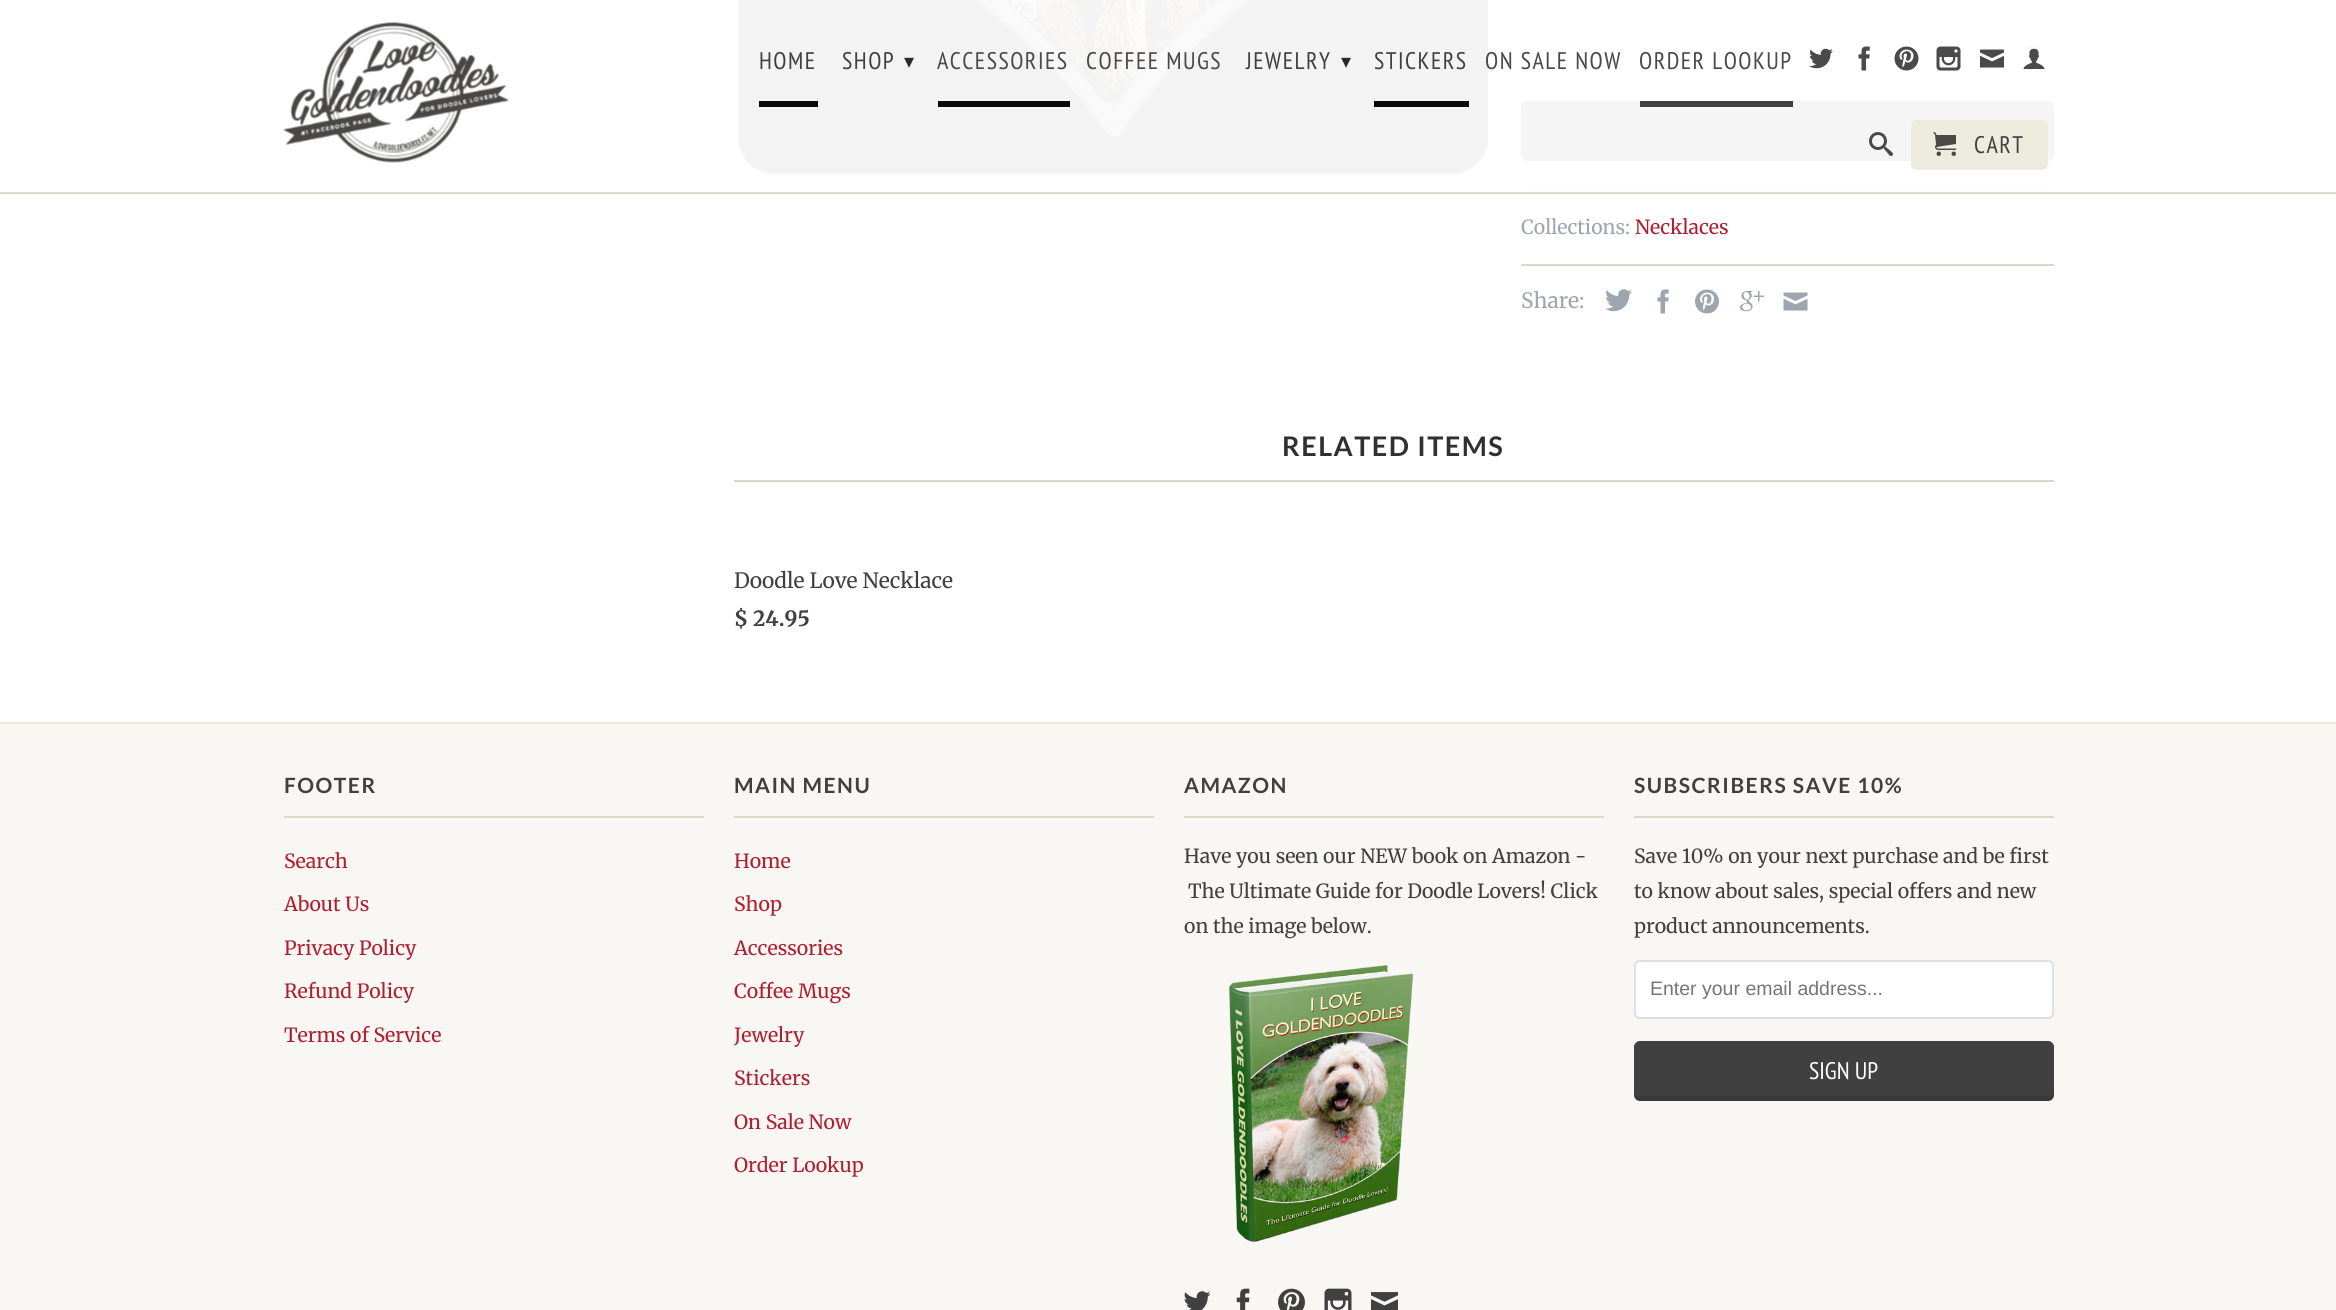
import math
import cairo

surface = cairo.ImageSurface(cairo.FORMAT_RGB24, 2336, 1310)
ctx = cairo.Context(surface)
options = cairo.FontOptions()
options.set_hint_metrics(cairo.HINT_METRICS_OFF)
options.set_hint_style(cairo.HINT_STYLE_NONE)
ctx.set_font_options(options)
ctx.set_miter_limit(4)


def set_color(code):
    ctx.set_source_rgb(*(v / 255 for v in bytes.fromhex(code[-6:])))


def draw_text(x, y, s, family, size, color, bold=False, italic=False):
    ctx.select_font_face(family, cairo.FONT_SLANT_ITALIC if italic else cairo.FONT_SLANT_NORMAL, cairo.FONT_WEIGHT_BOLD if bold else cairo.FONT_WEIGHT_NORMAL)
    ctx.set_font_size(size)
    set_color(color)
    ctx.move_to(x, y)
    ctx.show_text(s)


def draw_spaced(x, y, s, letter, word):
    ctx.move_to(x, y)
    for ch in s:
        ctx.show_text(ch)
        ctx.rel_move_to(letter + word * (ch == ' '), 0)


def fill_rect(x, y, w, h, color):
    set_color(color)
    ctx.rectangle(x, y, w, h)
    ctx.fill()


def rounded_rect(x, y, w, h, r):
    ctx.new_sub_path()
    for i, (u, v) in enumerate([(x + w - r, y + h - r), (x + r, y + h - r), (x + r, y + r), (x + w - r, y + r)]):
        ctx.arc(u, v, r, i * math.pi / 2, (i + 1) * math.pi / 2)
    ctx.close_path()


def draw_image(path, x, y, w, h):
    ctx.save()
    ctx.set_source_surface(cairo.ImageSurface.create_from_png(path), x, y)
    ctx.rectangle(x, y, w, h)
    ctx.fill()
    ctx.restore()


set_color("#ffffff")
ctx.paint()
fill_rect(0, 192, 2336, 2, "#e0d8ca")
draw_image("assets/img1.png", 283, 22, 226, 141)
draw_image("assets/img10.png", 737, 0, 751, 178)
ctx.select_font_face("PT Sans Narrow")
ctx.set_font_size(24)
set_color("#404040")
draw_spaced(759, 69, "HOME", 1.5, 0)
fill_rect(759, 101, 59, 6, "#0a0a0a")
set_color("#404040")
draw_spaced(842, 69, "SHOP", 1.5, 0)
ctx.select_font_face("DejaVu Sans")
ctx.set_font_size(20)
set_color("#292929")
draw_spaced(904, 68, "▾", 1.5, 0)
ctx.select_font_face("PT Sans Narrow")
ctx.set_font_size(24)
set_color("#494949")
draw_spaced(937, 69, "ACCESSORIES", 1.5, 0)
fill_rect(938, 101, 132, 6, "#0a0a0a")
set_color("#494949")
draw_spaced(1086, 69, "COFFEE MUGS", 1.5, 0)
set_color("#404040")
draw_spaced(1246, 69, "JEWELRY", 1.5, 0)
ctx.select_font_face("DejaVu Sans")
ctx.set_font_size(20)
set_color("#292929")
draw_spaced(1341, 68, "▾", 1.5, 0)
ctx.select_font_face("PT Sans Narrow")
ctx.set_font_size(24)
set_color("#404040")
draw_spaced(1374, 69, "STICKERS", 1.5, 0)
fill_rect(1374, 101, 95, 6, "#0a0a0a")
set_color("#494949")
draw_spaced(1485, 69, "ON SALE NOW", 1.5, 0)
draw_spaced(1639, 69, "ORDER LOOKUP", 1.5, 0)
set_color("#f5f5f5")
rounded_rect(1521, 101, 533, 60, 6)
ctx.fill()
fill_rect(1640, 101, 153, 6, "#404040")
draw_image("assets/img2.png", 1809, 48, 24, 21)
draw_image("assets/img3.png", 1858, 46, 12, 25)
draw_image("assets/img4.png", 1894, 46, 25, 25)
draw_image("assets/img5.png", 1936, 46, 25, 25)
draw_image("assets/img6.png", 1980, 49, 24, 19)
draw_image("assets/img11.png", 2026, 46, 14, 8)
draw_image("assets/img7.png", 2023, 48, 22, 21)
draw_image("assets/img8.png", 1869, 132, 24, 24)
ctx.set_source_rgba(0.929, 0.914, 0.867, 0.95)
rounded_rect(1911, 120, 137, 50, 6)
ctx.fill()
draw_image("assets/img9.png", 1933, 132, 23, 24)
set_color("#404040")
draw_spaced(1974, 153, "CART", 1.5, 0)
fill_rect(1521, 191, 533, 1, "#fdfdfc")
draw_text(1521, 234, "Collections:", "Merriweather", 19.5, "#9da6ae")
draw_text(1635, 234, "Necklaces", "Merriweather", 19.5, "#af1f31")
fill_rect(1521, 264, 533, 2, "#ded6c7")
draw_text(1521, 308, "Share:", "Merriweather", 21, "#9da6ae")
draw_image("assets/img12.png", 1605, 289, 27, 23)
draw_image("assets/img13.png", 1657, 289, 12, 25)
draw_image("assets/img14.png", 1695, 289, 24, 25)
draw_image("assets/img15.png", 1740, 291, 24, 21)
draw_image("assets/img16.png", 1783, 292, 25, 19)
fill_rect(734, 480, 1320, 2, "#ded6c7")
ctx.select_font_face("Lato", cairo.FONT_SLANT_NORMAL, cairo.FONT_WEIGHT_BOLD)
ctx.set_font_size(27)
set_color("#303030")
draw_spaced(1282, 456, "RELATED ITEMS", 1.5, 0)
draw_text(734, 588, "Doodle Love Necklace", "Merriweather", 21, "#404040")
draw_text(734, 626, "$ 24.95", "Merriweather", 21, "#404040", bold=True)
fill_rect(0, 724, 2336, 586, "#f9f7f3")
fill_rect(0, 722, 2336, 2, "#ede9dd")
fill_rect(284, 816, 420, 2, "#ded6c7")
ctx.select_font_face("Lato", cairo.FONT_SLANT_NORMAL, cairo.FONT_WEIGHT_BOLD)
set_color("#404040")
draw_spaced(284, 793, "FOOTER", 1.5, 0)
draw_text(284, 868, "Search", "Merriweather", 19.5, "#af1f31")
draw_text(284, 911, "About Us", "Merriweather", 19.5, "#af1f31")
draw_text(284, 955, "Privacy Policy", "Merriweather", 19.5, "#af1f31")
draw_text(284, 998, "Refund Policy", "Merriweather", 19.5, "#af1f31")
draw_text(284, 1042, "Terms of Service", "Merriweather", 19.5, "#af1f31")
fill_rect(734, 816, 420, 2, "#ded6c7")
ctx.select_font_face("Lato", cairo.FONT_SLANT_NORMAL, cairo.FONT_WEIGHT_BOLD)
ctx.set_font_size(21)
set_color("#404040")
draw_spaced(734, 793, "MAIN MENU", 1.5, 0)
draw_text(734, 868, "Home", "Merriweather", 19.5, "#af1f31")
draw_text(734, 911, "Shop", "Merriweather", 19.5, "#af1f31")
draw_text(734, 955, "Accessories", "Merriweather", 19.5, "#af1f31")
draw_text(734, 998, "Coffee Mugs", "Merriweather", 19.5, "#af1f31")
draw_text(734, 1042, "Jewelry", "Merriweather", 19.5, "#af1f31")
draw_text(734, 1085, "Stickers", "Merriweather", 19.5, "#af1f31")
draw_text(734, 1129, "On Sale Now", "Merriweather", 19.5, "#af1f31")
draw_text(734, 1172, "Order Lookup", "Merriweather", 19.5, "#af1f31")
fill_rect(1184, 816, 420, 2, "#ded6c7")
ctx.select_font_face("Lato", cairo.FONT_SLANT_NORMAL, cairo.FONT_WEIGHT_BOLD)
ctx.set_font_size(21)
set_color("#404040")
draw_spaced(1184, 793, "AMAZON", 1.5, 0)
draw_text(1184, 863, "Have you seen our NEW book on Amazon -", "Merriweather", 19.5, "#404040")
draw_text(1188, 898, "The Ultimate Guide for Doodle Lovers! Click", "Merriweather", 19.5, "#404040")
draw_text(1184, 933, "on the image below.", "Merriweather", 19.5, "#404040")
draw_image("assets/img17.png", 1229, 965, 185, 277)
draw_image("assets/img18.png", 1184, 1291, 27, 19)
draw_image("assets/img19.png", 1236, 1288, 14, 22)
draw_image("assets/img20.png", 1278, 1288, 27, 22)
draw_image("assets/img21.png", 1324, 1288, 28, 22)
draw_image("assets/img22.png", 1371, 1292, 27, 18)
fill_rect(1634, 816, 420, 2, "#ded6c7")
ctx.select_font_face("Lato", cairo.FONT_SLANT_NORMAL, cairo.FONT_WEIGHT_BOLD)
ctx.set_font_size(21)
set_color("#404040")
draw_spaced(1634, 793, "SUBSCRIBERS SAVE 10%", 1.5, 0)
draw_text(1634, 863, "Save 10% on your next purchase and be first", "Merriweather", 19.5, "#404040")
draw_text(1634, 898, "to know about sales, special offers and new", "Merriweather", 19.5, "#404040")
draw_text(1634, 933, "product announcements.", "Merriweather", 19.5, "#404040")
set_color("#ffffff")
rounded_rect(1635, 961, 418, 57, 5)
ctx.fill_preserve()
set_color("#dce0e0")
ctx.stroke()
draw_text(1650, 995, "Enter your email address...", "Liberation Sans", 19.5, "#757575")
set_color("#404040")
rounded_rect(1634, 1041, 420, 60, 6)
ctx.fill()
ctx.set_source_rgba(0, 0, 0, 0.1)
ctx.new_path()
ctx.move_to(1634, 1090)
ctx.line_to(1634, 1095)
ctx.curve_to(1634, 1098, 1637, 1101, 1640, 1101)
ctx.line_to(2048, 1101)
ctx.curve_to(2051, 1101, 2054, 1098, 2054, 1095)
ctx.line_to(2054, 1090)
ctx.curve_to(2054, 1094, 2051, 1096, 2048, 1096)
ctx.line_to(1640, 1096)
ctx.curve_to(1636, 1096, 1634, 1094, 1634, 1090)
ctx.close_path()
ctx.fill()
draw_text(1809, 1079, "SIGN UP", "PT Sans Narrow", 24, "#ffffff")
surface.write_to_png("output.png")
